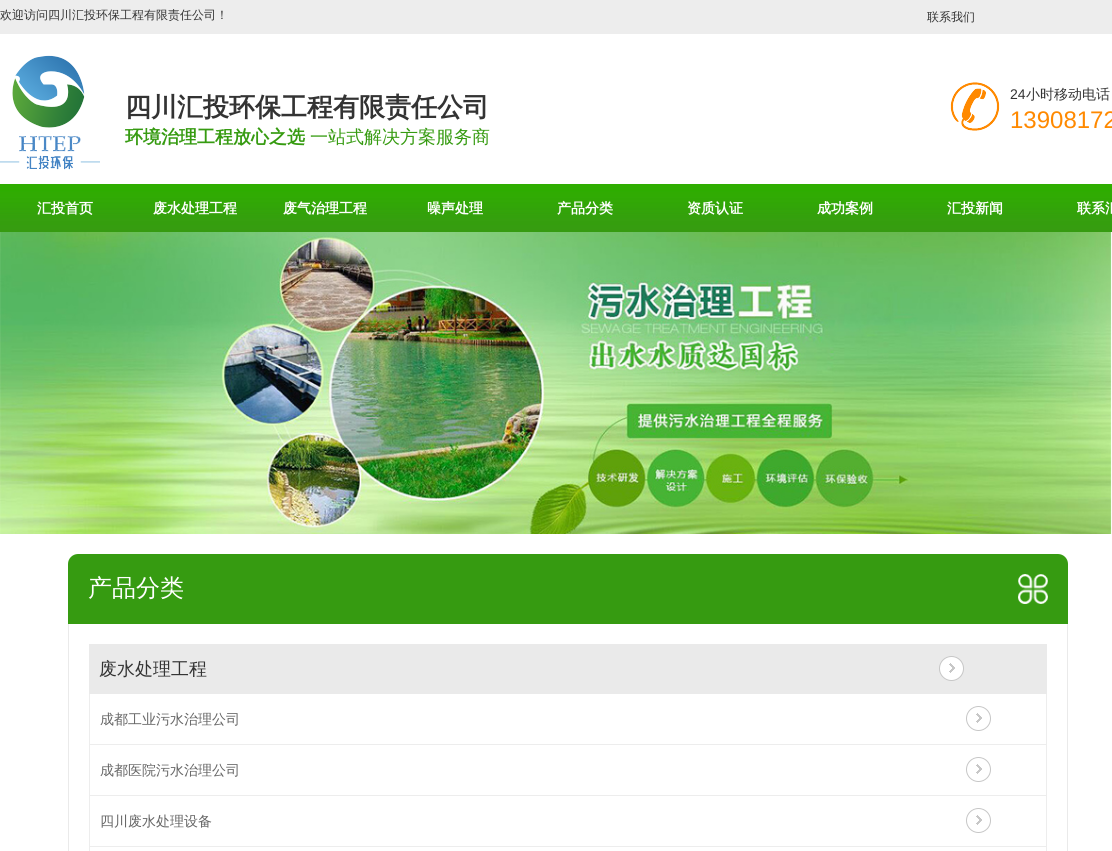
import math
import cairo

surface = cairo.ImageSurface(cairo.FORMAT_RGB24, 1112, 851)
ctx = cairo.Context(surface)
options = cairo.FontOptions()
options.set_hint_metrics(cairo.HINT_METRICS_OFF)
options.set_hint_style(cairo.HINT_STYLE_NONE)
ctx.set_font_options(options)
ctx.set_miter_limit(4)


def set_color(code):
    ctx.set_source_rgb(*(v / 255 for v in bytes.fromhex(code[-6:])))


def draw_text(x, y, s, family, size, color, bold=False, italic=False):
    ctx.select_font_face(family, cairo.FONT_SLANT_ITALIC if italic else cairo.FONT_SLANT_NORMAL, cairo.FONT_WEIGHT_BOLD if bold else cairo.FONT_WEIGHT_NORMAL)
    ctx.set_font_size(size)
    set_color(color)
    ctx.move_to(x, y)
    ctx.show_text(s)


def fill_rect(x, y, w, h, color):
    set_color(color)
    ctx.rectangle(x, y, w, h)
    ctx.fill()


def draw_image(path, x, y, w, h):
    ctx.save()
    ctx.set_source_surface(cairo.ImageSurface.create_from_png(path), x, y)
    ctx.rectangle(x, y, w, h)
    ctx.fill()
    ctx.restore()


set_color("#ffffff")
ctx.paint()
fill_rect(0, 0, 1112, 34, "#ededed")
draw_text(0, 19, "欢迎访问四川汇投环保工程有限责任公司！", "WenQuanYi Zen Hei Medium", 12, "#333333")
draw_text(927, 21, "联系我们", "WenQuanYi Zen Hei Medium", 12, "#333333")
draw_image("assets/img1.png", 0, 55, 100, 115)
draw_text(125, 116, "四川汇投环保工程有限责任公司", "WenQuanYi Zen Hei", 26, "#333333", bold=True)
draw_text(125, 143, "环境治理工程放心之选", "WenQuanYi Zen Hei", 18, "#369b11", bold=True)
draw_text(310, 143, "一站式解决方案服务商", "WenQuanYi Zen Hei Medium", 18, "#369b11")
draw_image("assets/img2.png", 950, 82, 50, 49)
draw_text(1010, 99, "24", "Liberation Sans", 14, "#333333")
draw_text(1026, 99, "小时移动电话", "WenQuanYi Zen Hei Medium", 14, "#333333")
draw_text(1010, 128, "13908172", "Liberation Sans", 24, "#ff8900")
draw_image("assets/img3.png", 0, 184, 1112, 48)
draw_text(37, 213, "汇投首页", "WenQuanYi Zen Hei", 14, "#ffffff", bold=True)
draw_text(153, 213, "废水处理工程", "WenQuanYi Zen Hei", 14, "#ffffff", bold=True)
draw_text(283, 213, "废气治理工程", "WenQuanYi Zen Hei", 14, "#ffffff", bold=True)
draw_text(427, 213, "噪声处理", "WenQuanYi Zen Hei", 14, "#ffffff", bold=True)
draw_text(557, 213, "产品分类", "WenQuanYi Zen Hei", 14, "#ffffff", bold=True)
draw_text(687, 213, "资质认证", "WenQuanYi Zen Hei", 14, "#ffffff", bold=True)
draw_text(817, 213, "成功案例", "WenQuanYi Zen Hei", 14, "#ffffff", bold=True)
draw_text(947, 213, "汇投新闻", "WenQuanYi Zen Hei", 14, "#ffffff", bold=True)
draw_text(1077, 213, "联系汇", "WenQuanYi Zen Hei", 14, "#ffffff", bold=True)
draw_image("assets/img4.png", 0, 232, 1112, 302)
set_color("#369b11")
ctx.new_path()
ctx.move_to(78, 554)
ctx.line_to(1058, 554)
ctx.curve_to(1063.5, 554, 1068, 558.5, 1068, 564)
ctx.line_to(1068, 624)
ctx.line_to(68, 624)
ctx.line_to(68, 564)
ctx.curve_to(68, 558.5, 72.5, 554, 78, 554)
ctx.close_path()
ctx.fill()
draw_text(88, 596, "产品分类", "WenQuanYi Zen Hei Medium", 24, "#ffffff")
draw_image("assets/img5.png", 1018, 574, 30, 30)
fill_rect(1067, 624, 1, 227, "#eaeaea")
fill_rect(68, 624, 1, 227, "#eaeaea")
fill_rect(89, 644, 958, 50, "#eaeaea")
draw_text(99, 675, "废水处理工程", "WenQuanYi Zen Hei Medium", 18, "#333333")
draw_image("assets/img6.png", 939, 656, 25, 25)
fill_rect(1046, 694, 1, 157, "#ededed")
fill_rect(89, 744, 958, 1, "#ededed")
fill_rect(89, 694, 1, 51, "#ededed")
draw_image("assets/img7.png", 966, 706, 25, 25)
draw_text(100, 724, "成都工业污水治理公司", "WenQuanYi Zen Hei Medium", 14, "#666666")
fill_rect(89, 795, 958, 1, "#ededed")
fill_rect(89, 745, 1, 51, "#ededed")
draw_image("assets/img7.png", 966, 757, 25, 25)
draw_text(100, 775, "成都医院污水治理公司", "WenQuanYi Zen Hei Medium", 14, "#666666")
fill_rect(89, 846, 958, 1, "#ededed")
fill_rect(89, 796, 1, 55, "#ededed")
draw_image("assets/img7.png", 966, 808, 25, 25)
draw_text(100, 826, "四川废水处理设备", "WenQuanYi Zen Hei Medium", 14, "#666666")
surface.write_to_png("output.png")
